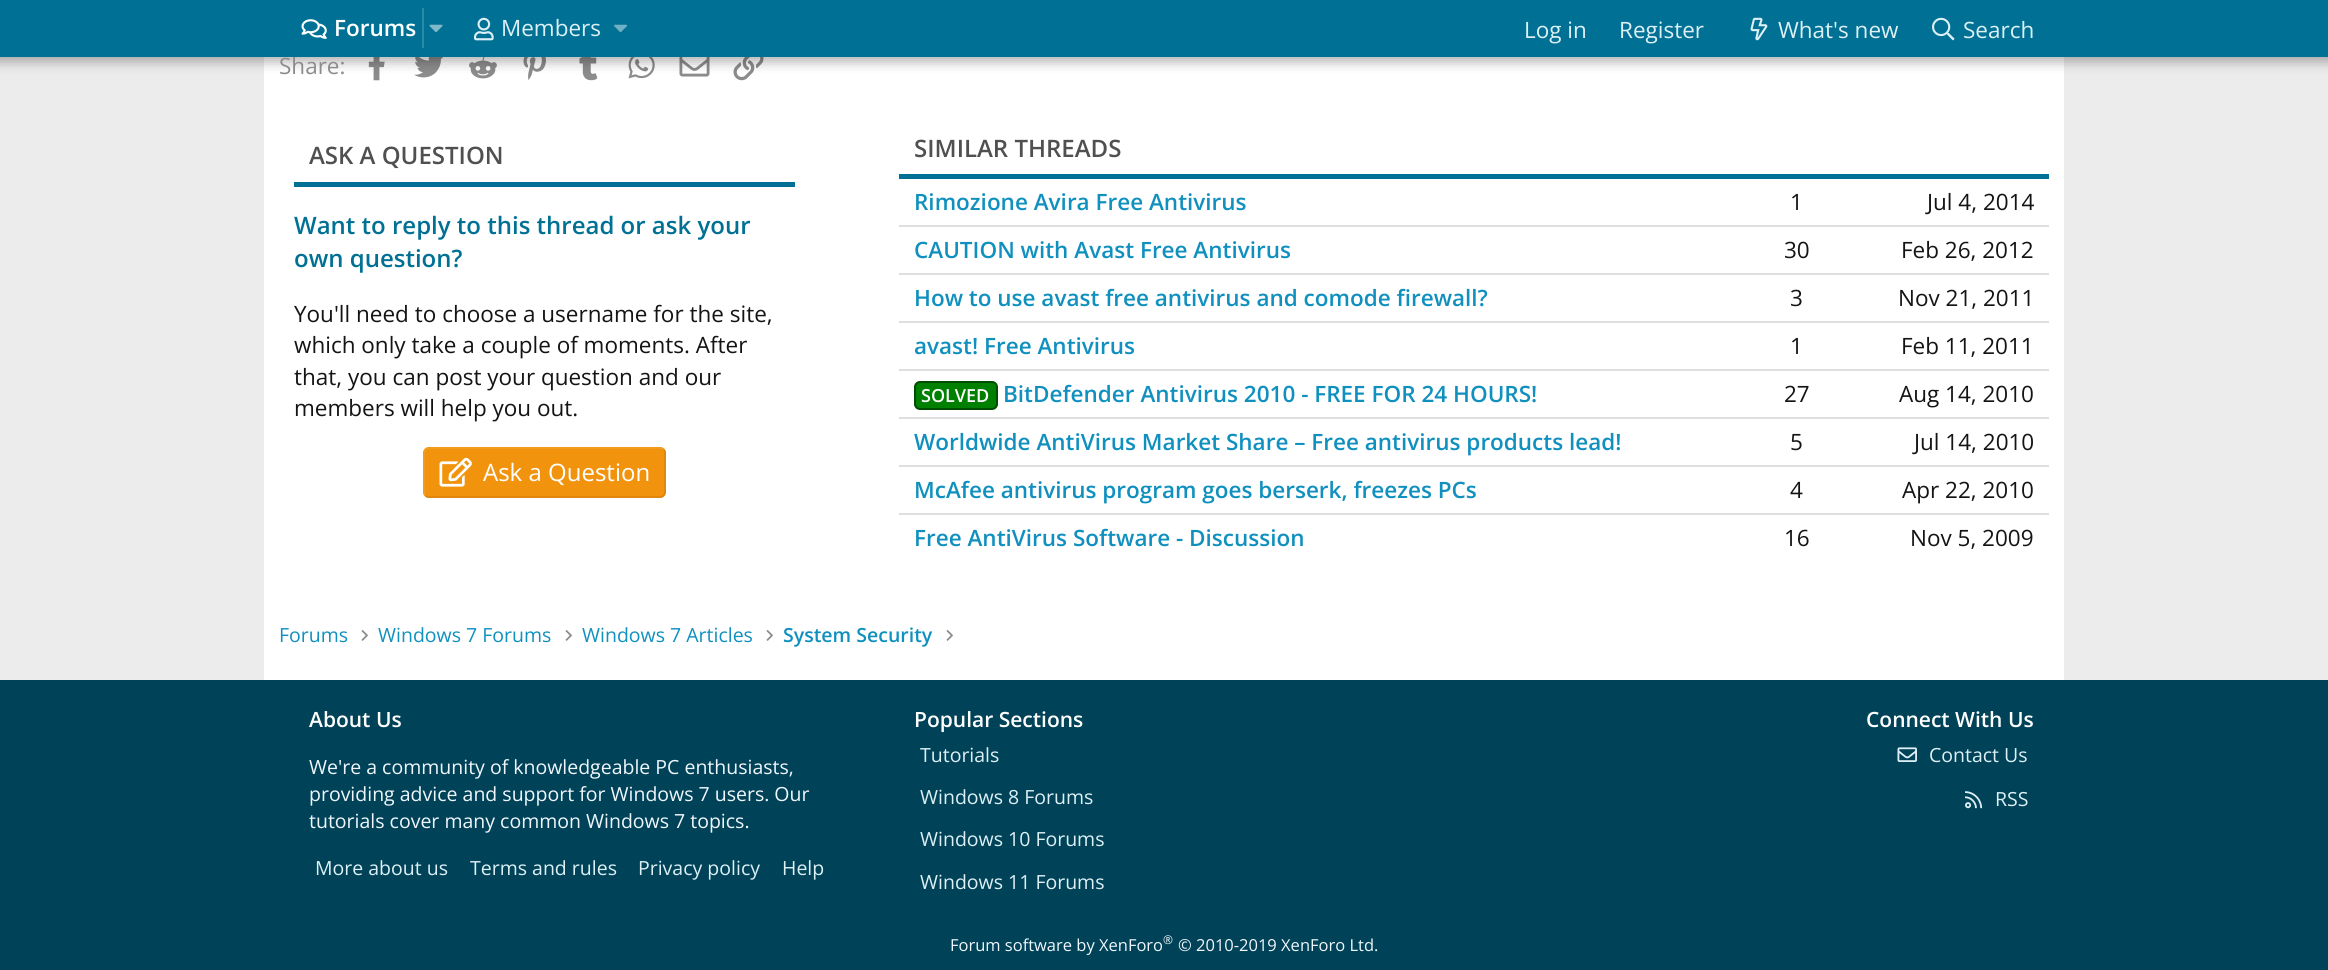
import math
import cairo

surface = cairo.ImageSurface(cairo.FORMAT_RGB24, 2328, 970)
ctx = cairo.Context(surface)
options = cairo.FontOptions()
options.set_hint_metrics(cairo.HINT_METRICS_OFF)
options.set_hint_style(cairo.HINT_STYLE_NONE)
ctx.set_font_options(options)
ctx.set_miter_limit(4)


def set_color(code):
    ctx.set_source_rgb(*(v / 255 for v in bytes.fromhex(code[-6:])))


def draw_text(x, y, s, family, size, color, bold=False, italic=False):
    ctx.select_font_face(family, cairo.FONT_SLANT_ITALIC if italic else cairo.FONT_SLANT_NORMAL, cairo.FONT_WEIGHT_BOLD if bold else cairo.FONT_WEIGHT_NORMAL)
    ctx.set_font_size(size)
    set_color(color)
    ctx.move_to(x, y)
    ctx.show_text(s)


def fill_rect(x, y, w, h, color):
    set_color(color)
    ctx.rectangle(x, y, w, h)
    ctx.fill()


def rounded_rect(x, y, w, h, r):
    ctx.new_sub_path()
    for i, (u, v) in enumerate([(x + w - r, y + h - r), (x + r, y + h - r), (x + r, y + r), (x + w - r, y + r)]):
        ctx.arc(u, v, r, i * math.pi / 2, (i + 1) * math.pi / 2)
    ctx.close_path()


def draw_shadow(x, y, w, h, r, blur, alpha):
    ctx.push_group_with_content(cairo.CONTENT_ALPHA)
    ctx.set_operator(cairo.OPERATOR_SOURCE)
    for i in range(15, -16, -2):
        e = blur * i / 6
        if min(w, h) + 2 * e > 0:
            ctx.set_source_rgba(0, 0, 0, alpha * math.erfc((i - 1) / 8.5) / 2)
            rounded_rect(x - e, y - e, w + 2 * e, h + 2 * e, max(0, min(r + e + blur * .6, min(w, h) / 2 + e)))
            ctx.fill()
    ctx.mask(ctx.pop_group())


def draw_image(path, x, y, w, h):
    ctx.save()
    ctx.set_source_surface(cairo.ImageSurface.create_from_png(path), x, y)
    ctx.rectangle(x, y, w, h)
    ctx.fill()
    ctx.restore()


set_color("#ececec")
ctx.paint()
fill_rect(264, 57, 1800, 623, "#ffffff")
draw_image("assets/img7.png", 368, 57, 17, 24)
draw_image("assets/img8.png", 414, 57, 29, 21)
draw_image("assets/img9.png", 469, 57, 28, 22)
draw_image("assets/img10.png", 523, 57, 23, 23)
draw_image("assets/img11.png", 579, 57, 19, 24)
draw_image("assets/img12.png", 628, 57, 27, 22)
draw_image("assets/img13.png", 679, 57, 31, 20)
draw_image("assets/img14.png", 733, 57, 31, 24)
set_color("#000000")
draw_shadow(-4, -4, 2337, 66, 0, 6, 0.3)
draw_text(279, 74, "Share:", "Open Sans", 22.5, "#8c8c8c")
fill_rect(0, 0, 2328, 57, "#007194")
draw_image("assets/img1.png", 301, 19, 26, 20)
draw_text(334, 36, "Forums", "Open Sans SemiBold", 22.5, "#ffffff")
fill_rect(422, 8, 2, 40, "#2d8aa7")
draw_image("assets/img2.png", 429, 24, 14, 9)
draw_image("assets/img3.png", 474, 17, 20, 24)
draw_text(501, 36, "Members", "Open Sans", 22.5, "#ddf0f6")
draw_image("assets/img4.png", 614, 24, 13, 9)
draw_text(1524, 38, "Log in", "Open Sans", 22.5, "#ddf0f6")
draw_text(1619, 38, "Register", "Open Sans", 22.5, "#ddf0f6")
draw_image("assets/img5.png", 1750, 17, 18, 24)
draw_text(1778, 38, "What's new", "Open Sans", 22.5, "#ddf0f6")
draw_image("assets/img6.png", 1932, 17, 23, 24)
draw_text(1963, 38, "Search", "Open Sans", 22.5, "#ddf0f6")
fill_rect(294, 182, 501, 5, "#007194")
draw_text(309, 164, "ASK A QUESTION", "Open Sans SemiBold", 24, "#505050")
draw_text(294, 234, "Want to reply to this thread or ask your", "Open Sans SemiBold", 24, "#007194")
draw_text(294, 267, "own question?", "Open Sans SemiBold", 24, "#007194")
draw_text(294, 322, "You'll need to choose a username for the site,", "Open Sans", 22.5, "#141414")
draw_text(294, 353, "which only take a couple of moments. After", "Open Sans", 22.5, "#141414")
draw_text(294, 385, "that, you can post your question and our", "Open Sans", 22.5, "#141414")
draw_text(294, 416, "members will help you out.", "Open Sans", 22.5, "#141414")
set_color("#f2930d")
rounded_rect(423, 447, 243, 51, 6)
ctx.fill()
ctx.new_path()
ctx.move_to(663.5, 449.5)
ctx.curve_to(664.5, 450.5, 665, 451.5, 665, 453)
ctx.line_to(665, 492)
ctx.curve_to(665, 493.5, 664.5, 494.5, 663.5, 495.5)
ctx.curve_to(662.5, 496.5, 661.5, 497, 660, 497)
ctx.line_to(429, 497)
ctx.curve_to(427.5, 497, 426.5, 496.5, 425.5, 495.5)
set_color("#da840c")
ctx.set_line_width(1.5)
ctx.stroke()
ctx.new_path()
ctx.move_to(425.5, 495.5)
ctx.curve_to(424.5, 494.5, 424, 493.5, 424, 492)
ctx.line_to(424, 453)
ctx.curve_to(424, 451.5, 424.5, 450.5, 425.5, 449.5)
ctx.curve_to(426.5, 448.5, 427.5, 448, 429, 448)
ctx.line_to(660, 448)
ctx.curve_to(661.5, 448, 662.5, 448.5, 663.5, 449.5)
set_color("#f39e25")
ctx.stroke()
draw_image("assets/img15.png", 439, 457, 33, 30)
draw_text(483, 481, "Ask a Question", "Open Sans", 24, "#ffffff")
fill_rect(899, 174, 1150, 5, "#007194")
draw_text(914, 157, "SIMILAR THREADS", "Open Sans SemiBold", 24, "#505050")
fill_rect(899, 225, 1150, 2, "#dfdfdf")
draw_text(914, 210, "Rimozione Avira Free Antivirus", "Open Sans SemiBold", 22.5, "#1090be")
draw_text(1790, 210, "1", "Open Sans", 22.5, "#141414")
draw_text(1927, 210, "Jul 4, 2014", "Open Sans", 22.5, "#141414")
fill_rect(899, 273, 1150, 2, "#dfdfdf")
draw_text(914, 258, "CAUTION with Avast Free Antivirus", "Open Sans SemiBold", 22.5, "#1090be")
draw_text(1784, 258, "30", "Open Sans", 22.5, "#141414")
draw_text(1901, 258, "Feb 26, 2012", "Open Sans", 22.5, "#141414")
fill_rect(899, 321, 1150, 2, "#dfdfdf")
draw_text(914, 306, "How to use avast free antivirus and comode firewall?", "Open Sans SemiBold", 22.5, "#1090be")
draw_text(1790, 306, "3", "Open Sans", 22.5, "#141414")
draw_text(1898, 306, "Nov 21, 2011", "Open Sans", 22.5, "#141414")
fill_rect(899, 369, 1150, 2, "#dfdfdf")
draw_text(914, 354, "avast! Free Antivirus", "Open Sans SemiBold", 22.5, "#1090be")
draw_text(1790, 354, "1", "Open Sans", 22.5, "#141414")
draw_text(1901, 354, "Feb 11, 2011", "Open Sans", 22.5, "#141414")
fill_rect(899, 417, 1150, 2, "#dfdfdf")
set_color("#008000")
rounded_rect(915, 382, 82, 27, 5)
ctx.fill_preserve()
set_color("#004d00")
ctx.set_line_width(2)
ctx.stroke()
draw_text(921, 402, "SOLVED", "Open Sans SemiBold", 18, "#ffffff")
draw_text(1003, 402, "BitDefender Antivirus 2010 - FREE FOR 24 HOURS!", "Open Sans SemiBold", 22.5, "#1090be")
draw_text(1784, 402, "27", "Open Sans", 22.5, "#141414")
draw_text(1899, 402, "Aug 14, 2010", "Open Sans", 22.5, "#141414")
fill_rect(899, 465, 1150, 2, "#dfdfdf")
draw_text(914, 450, "Worldwide AntiVirus Market Share – Free antivirus products lead!", "Open Sans SemiBold", 22.5, "#1090be")
draw_text(1790, 450, "5", "Open Sans", 22.5, "#141414")
draw_text(1914, 450, "Jul 14, 2010", "Open Sans", 22.5, "#141414")
fill_rect(899, 513, 1150, 2, "#dfdfdf")
draw_text(914, 498, "McAfee antivirus program goes berserk, freezes PCs", "Open Sans SemiBold", 22.5, "#1090be")
draw_text(1790, 498, "4", "Open Sans", 22.5, "#141414")
draw_text(1902, 498, "Apr 22, 2010", "Open Sans", 22.5, "#141414")
draw_text(914, 546, "Free AntiVirus Software - Discussion", "Open Sans SemiBold", 22.5, "#1090be")
draw_text(1784, 546, "16", "Open Sans", 22.5, "#141414")
draw_text(1910, 546, "Nov 5, 2009", "Open Sans", 22.5, "#141414")
draw_text(279, 642, "Forums", "Open Sans", 19.5, "#1090be")
draw_image("assets/img16.png", 361, 630, 7, 11)
draw_text(378, 642, "Windows 7 Forums", "Open Sans", 19.5, "#1090be")
draw_image("assets/img16.png", 565, 630, 7, 11)
draw_text(582, 642, "Windows 7 Articles", "Open Sans", 19.5, "#1090be")
draw_image("assets/img16.png", 766, 630, 7, 11)
draw_text(783, 642, "System Security", "Open Sans SemiBold", 19.5, "#1090be")
draw_image("assets/img16.png", 946, 630, 7, 11)
fill_rect(0, 680, 2328, 290, "#004257")
draw_text(309, 727, "About Us", "Open Sans SemiBold", 21, "#ffffff")
draw_text(309, 774, "We're a community of knowledgeable PC enthusiasts,", "Open Sans", 19.5, "#f0f7fc")
draw_text(309, 801, "providing advice and support for Windows 7 users. Our", "Open Sans", 19.5, "#f0f7fc")
draw_text(309, 828, "tutorials cover many common Windows 7 topics.", "Open Sans", 19.5, "#f0f7fc")
draw_text(315, 875, "More about us", "Open Sans", 19.5, "#ddf0f6")
draw_text(470, 875, "Terms and rules", "Open Sans", 19.5, "#ddf0f6")
draw_text(638, 875, "Privacy policy", "Open Sans", 19.5, "#ddf0f6")
draw_text(782, 875, "Help", "Open Sans", 19.5, "#ddf0f6")
draw_text(914, 727, "Popular Sections", "Open Sans SemiBold", 21, "#ffffff")
draw_text(920, 762, "Tutorials", "Open Sans", 19.5, "#ddf0f6")
draw_text(920, 804, "Windows 8 Forums", "Open Sans", 19.5, "#ddf0f6")
draw_text(920, 846, "Windows 10 Forums", "Open Sans", 19.5, "#ddf0f6")
draw_text(920, 889, "Windows 11 Forums", "Open Sans", 19.5, "#ddf0f6")
draw_text(1866, 727, "Connect With Us", "Open Sans SemiBold", 21, "#ffffff")
draw_image("assets/img17.png", 1897, 747, 20, 15)
draw_text(1929, 762, "Contact Us", "Open Sans", 19.5, "#ddf0f6")
draw_image("assets/img18.png", 1965, 791, 18, 18)
draw_text(1995, 806, "RSS", "Open Sans", 19.5, "#ddf0f6")
draw_text(950, 951, "Forum software by XenForo", "Open Sans", 16.5, "#f0f7fc")
draw_text(1163, 944, "®", "Open Sans", 12, "#f0f7fc")
draw_text(1178, 951, "© 2010-2019 XenForo Ltd.", "Open Sans", 16.5, "#f0f7fc")
surface.write_to_png("output.png")
